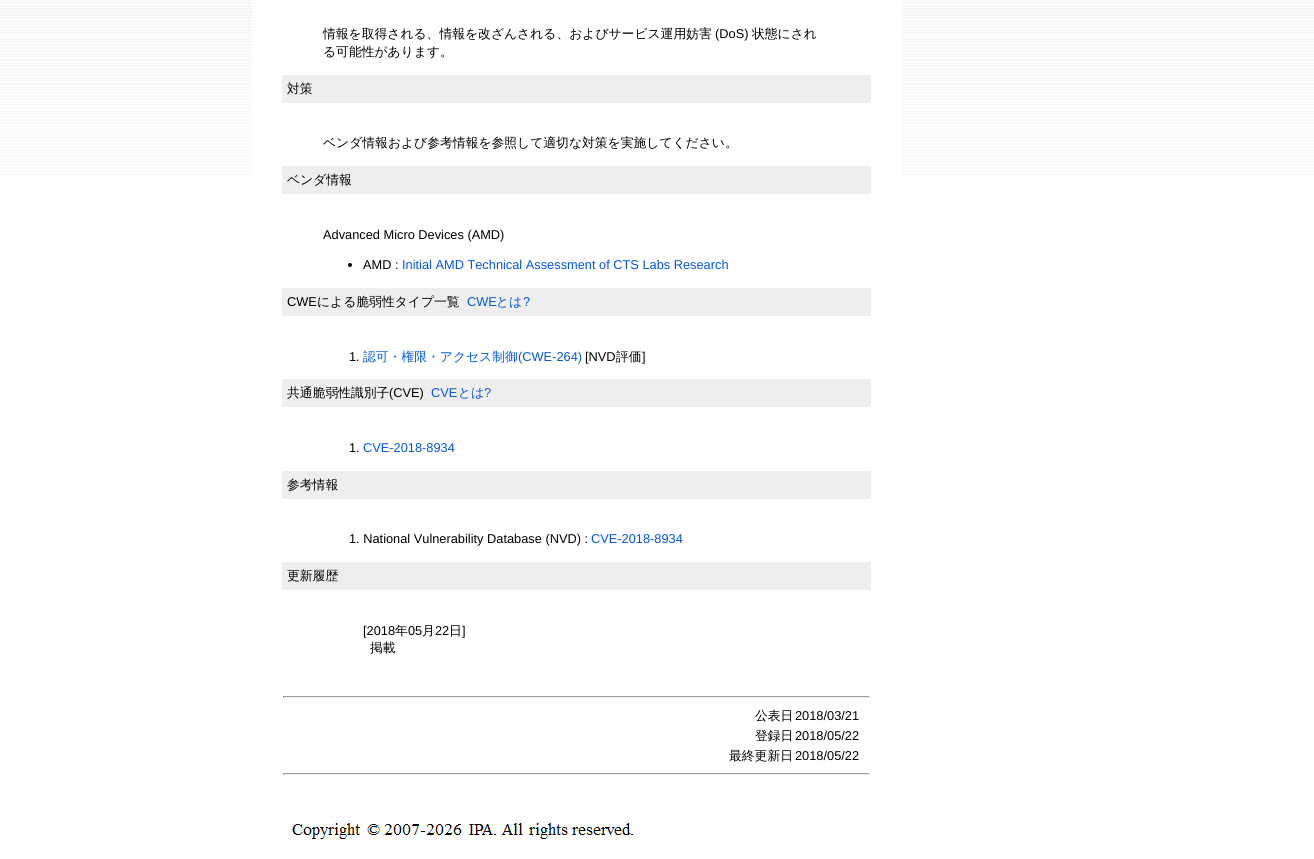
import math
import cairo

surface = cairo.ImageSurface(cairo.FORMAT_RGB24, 1314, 859)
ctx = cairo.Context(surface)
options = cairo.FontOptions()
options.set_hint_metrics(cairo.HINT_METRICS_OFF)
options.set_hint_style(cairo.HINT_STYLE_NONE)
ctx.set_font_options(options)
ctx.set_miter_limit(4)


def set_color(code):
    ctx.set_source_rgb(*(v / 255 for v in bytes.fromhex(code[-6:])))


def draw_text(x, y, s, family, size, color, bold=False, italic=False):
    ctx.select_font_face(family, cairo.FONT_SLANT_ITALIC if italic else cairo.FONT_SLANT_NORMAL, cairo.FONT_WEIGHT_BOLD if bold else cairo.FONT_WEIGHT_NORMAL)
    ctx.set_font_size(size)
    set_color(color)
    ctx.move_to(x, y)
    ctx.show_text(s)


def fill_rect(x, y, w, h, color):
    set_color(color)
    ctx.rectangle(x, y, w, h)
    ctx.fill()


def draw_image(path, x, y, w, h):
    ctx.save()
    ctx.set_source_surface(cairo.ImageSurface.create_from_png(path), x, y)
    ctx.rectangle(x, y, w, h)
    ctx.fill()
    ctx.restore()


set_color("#ffffff")
ctx.paint()
draw_image("assets/img1.png", 0, 0, 1314, 175)
fill_rect(252, 0, 650, 175, "#ffffff")
draw_text(323, 38, "情報を取得される、情報を改ざんされる、およびサービス運用妨害", "WenQuanYi Zen Hei Medium", 12.8, "#000000")
draw_text(715, 38, "(DoS)", "Liberation Sans", 12.8, "#000000")
draw_text(752, 38, "状態にされ", "WenQuanYi Zen Hei Medium", 12.8, "#000000")
draw_text(323, 56, "る可能性があります。", "WenQuanYi Zen Hei Medium", 12.8, "#000000")
fill_rect(282, 75, 589, 28, "#eeeeee")
draw_text(287, 93, "対策", "WenQuanYi Zen Hei Medium", 12.8, "#000000")
draw_text(323, 147, "ベンダ情報および参考情報を参照して適切な対策を実施してください。", "WenQuanYi Zen Hei Medium", 12.8, "#000000")
fill_rect(282, 166, 589, 28, "#eeeeee")
draw_text(287, 184, "ベンダ情報", "WenQuanYi Zen Hei Medium", 12.8, "#000000")
draw_text(323, 239, "Advanced Micro Devices (AMD)", "Liberation Sans", 12.8, "#000000")
ctx.new_path()
ctx.arc(350, 265, 2, 0, 2 * math.pi)
ctx.fill()
draw_text(363, 269, "AMD :", "Liberation Sans", 12.8, "#000000")
draw_text(402, 269, "Initial AMD Technical Assessment of CTS Labs Research", "Liberation Sans", 12.8, "#0455dc")
fill_rect(282, 288, 589, 28, "#eeeeee")
draw_text(287, 306, "CWE", "Liberation Sans", 12.8, "#000000")
draw_text(317, 306, "による脆弱性タイプ一覧", "WenQuanYi Zen Hei Medium", 12.8, "#000000")
draw_text(467, 306, "CWE", "Liberation Sans", 12.8, "#0455dc")
draw_text(496, 306, "とは", "WenQuanYi Zen Hei Medium", 12.8, "#0455dc")
draw_text(523, 306, "?", "Liberation Sans", 12.8, "#0455dc")
draw_text(349, 361, "1.", "Liberation Sans", 12.8, "#000000")
draw_text(363, 361, "認可・権限・アクセス制御", "WenQuanYi Zen Hei Medium", 12.8, "#0455dc")
draw_text(518, 361, "(CWE-264)", "Liberation Sans", 12.8, "#0455dc")
draw_text(585, 361, "[NVD", "Liberation Sans", 12.8, "#000000")
draw_text(616, 361, "評価", "WenQuanYi Zen Hei Medium", 12.8, "#000000")
draw_text(642, 361, "]", "Liberation Sans", 12.8, "#000000")
fill_rect(282, 379, 589, 28, "#eeeeee")
draw_text(287, 397, "共通脆弱性識別子", "WenQuanYi Zen Hei Medium", 12.8, "#000000")
draw_text(389, 397, "(CVE)", "Liberation Sans", 12.8, "#000000")
draw_text(431, 397, "CVE", "Liberation Sans", 12.8, "#0455dc")
draw_text(458, 397, "とは", "WenQuanYi Zen Hei Medium", 12.8, "#0455dc")
draw_text(484, 397, "?", "Liberation Sans", 12.8, "#0455dc")
draw_text(349, 452, "1.", "Liberation Sans", 12.8, "#000000")
draw_text(363, 452, "CVE-2018-8934", "Liberation Sans", 12.8, "#0455dc")
fill_rect(282, 471, 589, 28, "#eeeeee")
draw_text(287, 489, "参考情報", "WenQuanYi Zen Hei Medium", 12.8, "#000000")
draw_text(349, 543, "1. National Vulnerability Database (NVD) :", "Liberation Sans", 12.8, "#000000")
draw_text(591, 543, "CVE-2018-8934", "Liberation Sans", 12.8, "#0455dc")
fill_rect(282, 562, 589, 28, "#eeeeee")
draw_text(287, 580, "更新履歴", "WenQuanYi Zen Hei Medium", 12.8, "#000000")
draw_text(363, 635, "[2018", "Liberation Sans", 12.8, "#000000")
draw_text(395, 635, "年", "WenQuanYi Zen Hei Medium", 12.8, "#000000")
draw_text(408, 635, "05", "Liberation Sans", 12.8, "#000000")
draw_text(422, 635, "月", "WenQuanYi Zen Hei Medium", 12.8, "#000000")
draw_text(435, 635, "22", "Liberation Sans", 12.8, "#000000")
draw_text(449, 635, "日", "WenQuanYi Zen Hei Medium", 12.8, "#000000")
draw_text(462, 635, "]", "Liberation Sans", 12.8, "#000000")
draw_text(370, 652, "掲載", "WenQuanYi Zen Hei Medium", 12.8, "#000000")
fill_rect(283, 696, 587, 1, "#9f9f9f")
fill_rect(869, 696, 1, 2, "#eeeeee")
fill_rect(283, 697, 587, 1, "#eeeeee")
fill_rect(283, 696, 1, 2, "#9f9f9f")
draw_text(755, 720, "公表日", "WenQuanYi Zen Hei Medium", 12.8, "#000000")
draw_text(795, 720, "2018/03/21", "Liberation Sans", 12.8, "#000000")
draw_text(755, 740, "登録日", "WenQuanYi Zen Hei Medium", 12.8, "#000000")
draw_text(795, 740, "2018/05/22", "Liberation Sans", 12.8, "#000000")
draw_text(729, 760, "最終更新日", "WenQuanYi Zen Hei Medium", 12.8, "#000000")
draw_text(795, 760, "2018/05/22", "Liberation Sans", 12.8, "#000000")
fill_rect(283, 773, 587, 1, "#9f9f9f")
fill_rect(869, 773, 1, 2, "#eeeeee")
fill_rect(283, 774, 587, 1, "#eeeeee")
fill_rect(283, 773, 1, 2, "#9f9f9f")
draw_image("assets/img2.png", 292, 823, 342, 16)
surface.write_to_png("output.png")
